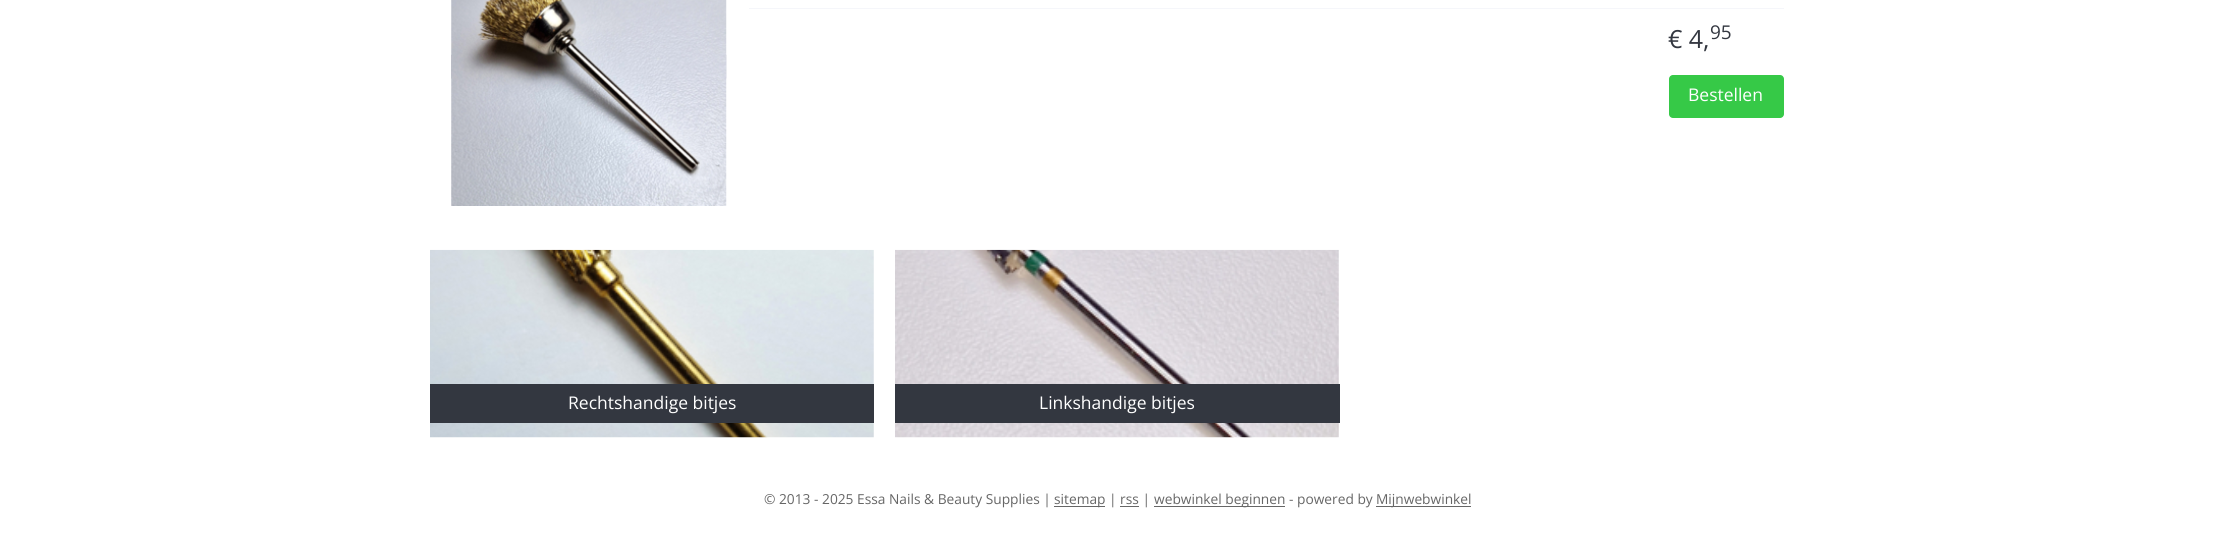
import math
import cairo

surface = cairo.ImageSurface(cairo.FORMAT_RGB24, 2234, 545)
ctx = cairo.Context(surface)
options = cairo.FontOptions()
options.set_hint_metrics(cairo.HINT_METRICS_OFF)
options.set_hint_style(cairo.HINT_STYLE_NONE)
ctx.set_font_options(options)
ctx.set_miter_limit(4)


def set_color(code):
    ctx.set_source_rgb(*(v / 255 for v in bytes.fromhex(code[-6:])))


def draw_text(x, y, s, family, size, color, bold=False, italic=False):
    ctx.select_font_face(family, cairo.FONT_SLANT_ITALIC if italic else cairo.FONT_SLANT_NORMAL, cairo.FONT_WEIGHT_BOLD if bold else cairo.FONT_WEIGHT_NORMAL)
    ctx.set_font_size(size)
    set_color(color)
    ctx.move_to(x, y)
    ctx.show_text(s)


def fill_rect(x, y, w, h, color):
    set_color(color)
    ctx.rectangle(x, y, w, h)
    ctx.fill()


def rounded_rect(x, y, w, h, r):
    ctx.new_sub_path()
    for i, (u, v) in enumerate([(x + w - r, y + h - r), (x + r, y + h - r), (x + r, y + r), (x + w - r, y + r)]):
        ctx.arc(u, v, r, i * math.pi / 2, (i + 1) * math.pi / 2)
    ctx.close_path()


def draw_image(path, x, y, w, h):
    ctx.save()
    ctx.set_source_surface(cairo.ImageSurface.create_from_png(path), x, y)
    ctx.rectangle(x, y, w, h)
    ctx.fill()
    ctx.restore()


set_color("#ffffff")
ctx.paint()
draw_image("assets/img1.png", 451, 54, 276, 25)
draw_image("assets/img2.png", 451, 0, 276, 206)
fill_rect(749, 8, 1035, 1, "#f5f6fa")
draw_text(1668, 48, "€ 4,", "Open Sans", 25, "#333740")
draw_text(1710, 39, "95", "Open Sans", 19, "#333740")
set_color("#36c947")
rounded_rect(1669, 75, 115, 43, 4)
ctx.fill()
draw_text(1688, 101, "Bestellen", "Open Sans", 17.5, "#ffffff")
draw_image("assets/img3.png", 430, 249, 444, 189)
fill_rect(430, 384, 444, 39, "#333740")
draw_text(568, 409, "Rechtshandige bitjes", "Open Sans", 17.5, "#ffffff")
draw_image("assets/img4.png", 895, 249, 444, 189)
fill_rect(895, 384, 445, 39, "#333740")
draw_text(1039, 409, "Linkshandige bitjes", "Open Sans", 17.5, "#ffffff")
draw_text(764, 504, "© 2013 - 2025 Essa Nails & Beauty Supplies |", "Open Sans", 13.75, "#666666")
fill_rect(1054, 506, 51, 1, "#666666")
draw_text(1054, 504, "sitemap | rss |", "Open Sans", 13.75, "#666666")
fill_rect(1154, 506, 131, 1, "#666666")
draw_text(1154, 504, "webwinkel beginnen", "Open Sans", 13.75, "#666666")
draw_text(1289, 504, "- powered by", "Open Sans", 13.75, "#666666")
fill_rect(1376, 506, 95, 1, "#666666")
draw_text(1376, 504, "Mijnwebwinkel", "Open Sans", 13.75, "#666666")
fill_rect(1120, 506, 19, 1, "#666666")
surface.write_to_png("output.png")
